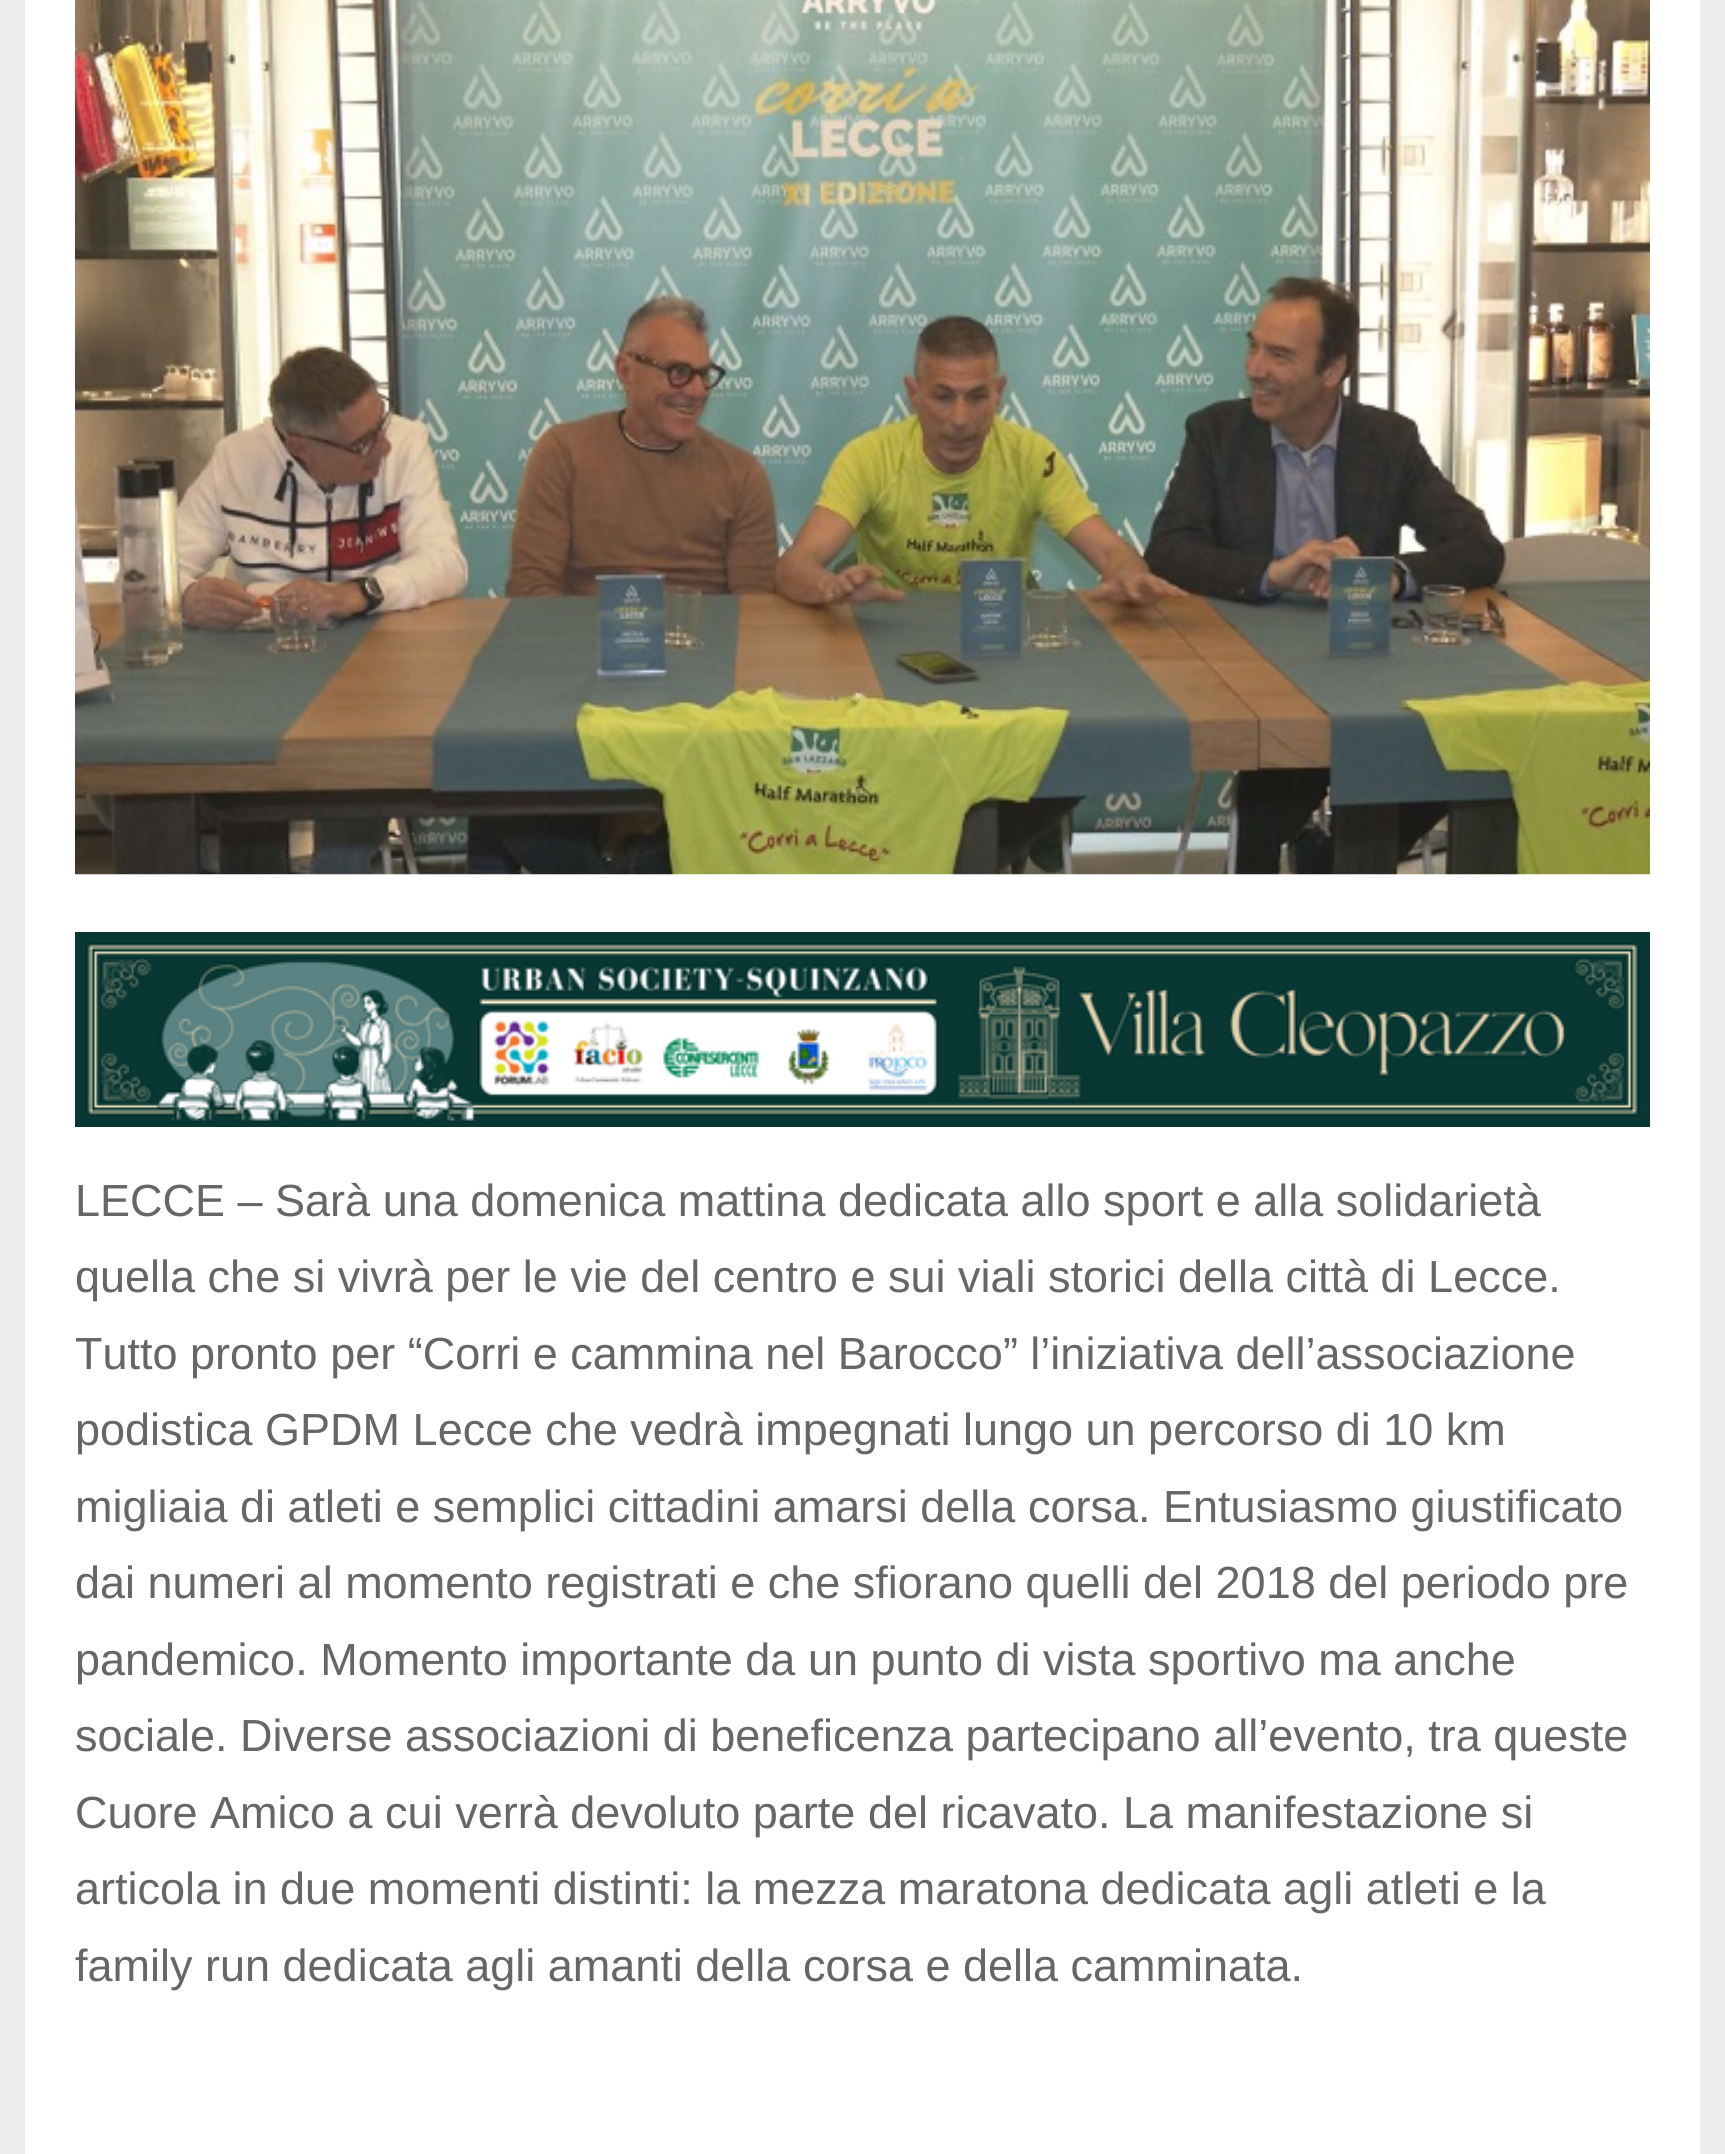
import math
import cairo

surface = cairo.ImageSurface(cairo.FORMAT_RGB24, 1725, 2154)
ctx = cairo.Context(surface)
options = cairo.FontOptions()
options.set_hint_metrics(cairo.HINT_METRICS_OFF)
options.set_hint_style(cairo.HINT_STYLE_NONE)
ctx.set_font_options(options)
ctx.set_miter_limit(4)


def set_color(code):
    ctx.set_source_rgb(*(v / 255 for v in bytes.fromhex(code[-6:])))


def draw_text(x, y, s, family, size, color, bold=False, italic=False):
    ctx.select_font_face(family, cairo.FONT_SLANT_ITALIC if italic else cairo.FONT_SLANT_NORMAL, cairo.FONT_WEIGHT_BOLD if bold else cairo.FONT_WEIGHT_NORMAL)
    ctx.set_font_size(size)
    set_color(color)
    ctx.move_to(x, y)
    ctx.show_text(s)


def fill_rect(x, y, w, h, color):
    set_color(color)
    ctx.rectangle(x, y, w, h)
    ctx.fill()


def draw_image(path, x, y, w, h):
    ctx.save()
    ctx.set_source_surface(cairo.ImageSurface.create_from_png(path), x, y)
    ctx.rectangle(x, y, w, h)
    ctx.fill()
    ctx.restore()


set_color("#eeeeee")
ctx.paint()
fill_rect(25, 0, 1675, 2154, "#ffffff")
draw_image("assets/img1.png", 75, 0, 1575, 875)
draw_image("assets/img2.png", 75, 932, 1575, 195)
draw_text(75, 1216, "LECCE – Sarà una domenica mattina dedicata allo sport e alla solidarietà", "Arimo", 45, "#666666")
draw_text(75, 1292, "quella che si vivrà per le vie del centro e sui viali storici della città di Lecce.", "Arimo", 45, "#666666")
draw_text(75, 1369, "Tutto pronto per “Corri e cammina nel Barocco” l’iniziativa dell’associazione", "Arimo", 45, "#666666")
draw_text(75, 1445, "podistica GPDM Lecce che vedrà impegnati lungo un percorso di 10 km", "Arimo", 45, "#666666")
draw_text(75, 1522, "migliaia di atleti e semplici cittadini amarsi della corsa. Entusiasmo giustificato", "Arimo", 45, "#666666")
draw_text(75, 1598, "dai numeri al momento registrati e che sfiorano quelli del 2018 del periodo pre", "Arimo", 45, "#666666")
draw_text(75, 1675, "pandemico. Momento importante da un punto di vista sportivo ma anche", "Arimo", 45, "#666666")
draw_text(75, 1751, "sociale. Diverse associazioni di beneficenza partecipano all’evento, tra queste", "Arimo", 45, "#666666")
draw_text(75, 1828, "Cuore Amico a cui verrà devoluto parte del ricavato. La manifestazione si", "Arimo", 45, "#666666")
draw_text(75, 1904, "articola in due momenti distinti: la mezza maratona dedicata agli atleti e la", "Arimo", 45, "#666666")
draw_text(75, 1981, "family run dedicata agli amanti della corsa e della camminata.", "Arimo", 45, "#666666")
surface.write_to_png("output.png")
